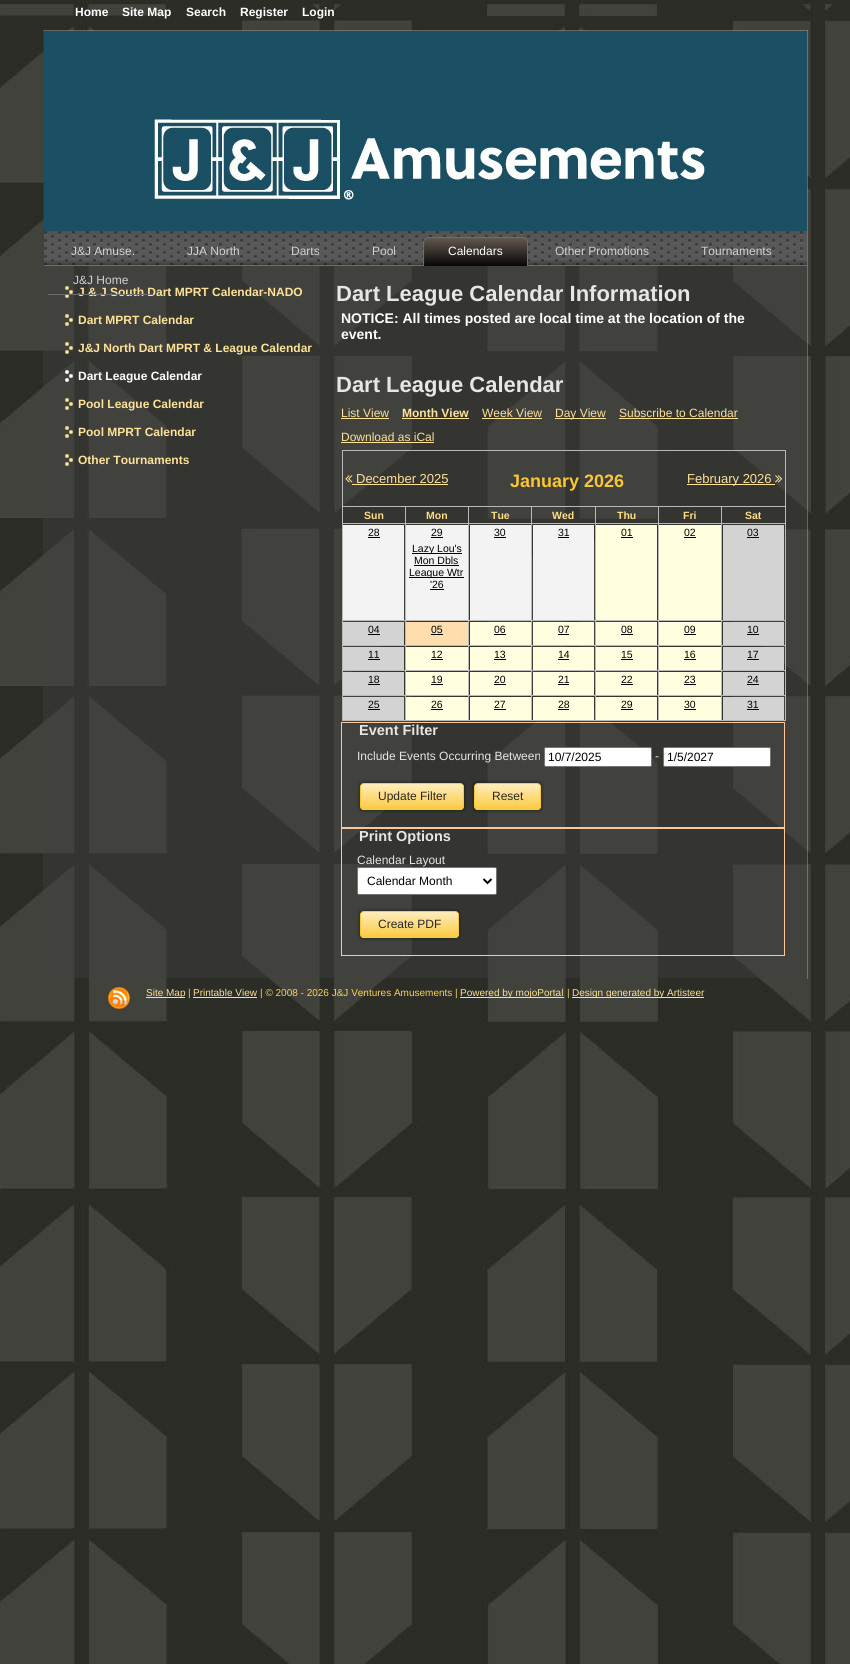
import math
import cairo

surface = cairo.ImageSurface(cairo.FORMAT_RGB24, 850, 1664)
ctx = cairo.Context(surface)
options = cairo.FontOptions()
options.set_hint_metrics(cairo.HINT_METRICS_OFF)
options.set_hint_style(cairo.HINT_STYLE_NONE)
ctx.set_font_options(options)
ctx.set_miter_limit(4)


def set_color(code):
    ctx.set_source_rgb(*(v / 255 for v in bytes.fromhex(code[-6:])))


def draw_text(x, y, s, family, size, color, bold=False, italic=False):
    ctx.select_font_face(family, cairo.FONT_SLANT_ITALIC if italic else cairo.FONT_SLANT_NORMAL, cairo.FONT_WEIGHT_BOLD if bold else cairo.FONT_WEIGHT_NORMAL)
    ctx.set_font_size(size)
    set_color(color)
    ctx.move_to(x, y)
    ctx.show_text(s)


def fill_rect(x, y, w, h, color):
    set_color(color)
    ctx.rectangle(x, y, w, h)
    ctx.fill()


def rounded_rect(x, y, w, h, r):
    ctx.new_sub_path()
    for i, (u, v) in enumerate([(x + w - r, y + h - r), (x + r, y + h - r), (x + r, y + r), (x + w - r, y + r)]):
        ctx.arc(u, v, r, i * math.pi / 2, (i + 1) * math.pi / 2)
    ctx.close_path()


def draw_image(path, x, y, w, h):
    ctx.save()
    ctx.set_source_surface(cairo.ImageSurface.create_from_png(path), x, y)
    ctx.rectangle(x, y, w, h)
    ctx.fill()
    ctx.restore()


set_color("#ffffff")
ctx.paint()
draw_image("assets/img1.png", 0, 0, 850, 1664)
draw_text(75, 16, "Home", "Liberation Sans", 12, "#ffffff", bold=True)
draw_text(122, 16, "Site Map", "Liberation Sans", 12, "#ffffff", bold=True)
draw_text(186, 16, "Search", "Liberation Sans", 12, "#ffffff", bold=True)
draw_text(240, 16, "Register", "Liberation Sans", 12, "#ffffff", bold=True)
draw_text(302, 16, "Login", "Liberation Sans", 12, "#ffffff", bold=True)
draw_image("assets/img2.png", 43, 30, 764, 1)
draw_image("assets/img3.png", 807, 978, 1, 1)
fill_rect(807, 30, 1, 1, "#81827f")
ctx.set_source_rgba(0.255, 0.255, 0.255, 0.4)
ctx.rectangle(43, 31, 764, 947)
ctx.fill()
draw_image("assets/img4.png", 44, 31, 763, 200)
ctx.set_source_rgba(0.725, 0.725, 0.725, 0.4)
ctx.rectangle(807, 31, 1, 947)
ctx.fill()
draw_image("assets/img5.png", 44, 231, 763, 35)
draw_text(71, 255, "J&J Amuse.", "Liberation Sans", 12, "#d2d2d2")
draw_text(187, 255, "JJA North", "Liberation Sans", 12, "#d2d2d2")
draw_text(291, 255, "Darts", "Liberation Sans", 12, "#d2d2d2")
draw_text(372, 255, "Pool", "Liberation Sans", 12, "#d2d2d2")
draw_image("assets/img6.png", 423, 237, 99, 29)
draw_image("assets/img7.png", 522, 237, 6, 29)
draw_text(448, 255, "Calendars", "Liberation Sans", 12, "#ffffff")
draw_text(555, 255, "Other Promotions", "Liberation Sans", 12, "#d2d2d2")
draw_text(701, 255, "Tournaments", "Liberation Sans", 12, "#d2d2d2")
draw_text(73, 284, "J&J Home", "Liberation Sans", 12, "#d2d2d2")
draw_image("assets/img8.png", 65, 286, 8, 12)
draw_text(78, 296, "J & J South Dart MPRT Calendar-NADO", "Liberation Sans", 12, "#fde297", bold=True)
fill_rect(48, 294, 105, 1, "#6d6d6d")
draw_image("assets/img8.png", 65, 314, 8, 12)
draw_text(78, 324, "Dart MPRT Calendar", "Liberation Sans", 12, "#fde297", bold=True)
draw_image("assets/img9.png", 65, 342, 8, 12)
draw_text(78, 352, "J&J North Dart MPRT & League Calendar", "Liberation Sans", 12, "#fde297", bold=True)
draw_image("assets/img10.png", 65, 370, 8, 12)
draw_text(78, 380, "Dart League Calendar", "Liberation Sans", 12, "#ffffff", bold=True)
draw_image("assets/img8.png", 65, 398, 8, 12)
draw_text(78, 408, "Pool League Calendar", "Liberation Sans", 12, "#fde297", bold=True)
draw_image("assets/img8.png", 65, 426, 8, 12)
draw_text(78, 436, "Pool MPRT Calendar", "Liberation Sans", 12, "#fde297", bold=True)
draw_image("assets/img8.png", 65, 454, 8, 12)
draw_text(78, 464, "Other Tournaments", "Liberation Sans", 12, "#fde297", bold=True)
draw_text(336, 301, "Dart League Calendar Information", "Liberation Sans", 22, "#e6e6e6", bold=True)
draw_text(341, 323, "NOTICE: All times posted are local time at the location of the", "Liberation Sans", 14, "#ffffff", bold=True)
draw_text(341, 339, "event.", "Liberation Sans", 14, "#ffffff", bold=True)
draw_text(336, 392, "Dart League Calendar", "Liberation Sans", 22, "#e6e6e6", bold=True)
draw_text(341, 417, "List View", "Liberation Sans", 12, "#fde297")
fill_rect(341, 418, 48, 1, "#fde297")
draw_text(402, 417, "Month View", "Liberation Sans", 12, "#fde297", bold=True)
fill_rect(402, 418, 67, 1, "#fde297")
draw_text(482, 417, "Week View", "Liberation Sans", 12, "#fde297")
fill_rect(482, 418, 60, 1, "#fde297")
fill_rect(555, 418, 51, 1, "#fde297")
draw_text(555, 417, "Day View", "Liberation Sans", 12, "#fde297")
draw_text(619, 417, "Subscribe to Calendar", "Liberation Sans", 12, "#fde297")
fill_rect(619, 418, 119, 1, "#fde297")
draw_text(341, 441, "Download as iCal", "Liberation Sans", 12, "#fde297")
fill_rect(341, 442, 93, 1, "#fde297")
fill_rect(342, 450, 444, 1, "#b9b9b9")
fill_rect(721, 506, 65, 1, "#b9b9b9")
fill_rect(721, 523, 65, 1, "#b9b9b9")
fill_rect(721, 620, 65, 1, "#b9b9b9")
fill_rect(721, 645, 65, 1, "#b9b9b9")
fill_rect(721, 670, 65, 1, "#b9b9b9")
fill_rect(721, 695, 65, 1, "#b9b9b9")
fill_rect(785, 712, 1, 9, "#b9b9b9")
fill_rect(785, 687, 1, 26, "#b9b9b9")
fill_rect(785, 662, 1, 26, "#b9b9b9")
fill_rect(785, 637, 1, 26, "#b9b9b9")
fill_rect(785, 540, 1, 98, "#b9b9b9")
fill_rect(785, 523, 1, 18, "#b9b9b9")
fill_rect(785, 506, 1, 18, "#b9b9b9")
fill_rect(785, 450, 1, 57, "#b9b9b9")
fill_rect(721, 720, 65, 1, "#b9b9b9")
fill_rect(721, 712, 1, 9, "#b9b9b9")
fill_rect(721, 695, 1, 18, "#b9b9b9")
fill_rect(658, 695, 64, 1, "#b9b9b9")
fill_rect(721, 687, 1, 9, "#b9b9b9")
fill_rect(721, 670, 1, 18, "#b9b9b9")
fill_rect(658, 670, 64, 1, "#b9b9b9")
fill_rect(721, 662, 1, 9, "#b9b9b9")
fill_rect(721, 645, 1, 18, "#b9b9b9")
fill_rect(658, 645, 64, 1, "#b9b9b9")
fill_rect(721, 637, 1, 9, "#b9b9b9")
fill_rect(721, 620, 1, 18, "#b9b9b9")
fill_rect(658, 620, 64, 1, "#b9b9b9")
fill_rect(721, 540, 1, 81, "#b9b9b9")
fill_rect(721, 523, 1, 18, "#b9b9b9")
fill_rect(658, 523, 64, 1, "#b9b9b9")
fill_rect(721, 506, 1, 18, "#b9b9b9")
fill_rect(658, 506, 64, 1, "#b9b9b9")
fill_rect(658, 720, 64, 1, "#b9b9b9")
fill_rect(658, 712, 1, 9, "#b9b9b9")
fill_rect(658, 695, 1, 18, "#b9b9b9")
fill_rect(595, 695, 64, 1, "#b9b9b9")
fill_rect(658, 687, 1, 9, "#b9b9b9")
fill_rect(658, 670, 1, 18, "#b9b9b9")
fill_rect(595, 670, 64, 1, "#b9b9b9")
fill_rect(658, 662, 1, 9, "#b9b9b9")
fill_rect(658, 645, 1, 18, "#b9b9b9")
fill_rect(595, 645, 64, 1, "#b9b9b9")
fill_rect(658, 637, 1, 9, "#b9b9b9")
fill_rect(658, 620, 1, 18, "#b9b9b9")
fill_rect(595, 620, 64, 1, "#b9b9b9")
fill_rect(658, 540, 1, 81, "#b9b9b9")
fill_rect(658, 523, 1, 18, "#b9b9b9")
fill_rect(595, 523, 64, 1, "#b9b9b9")
fill_rect(658, 506, 1, 18, "#b9b9b9")
fill_rect(595, 506, 64, 1, "#b9b9b9")
fill_rect(595, 720, 64, 1, "#b9b9b9")
fill_rect(595, 712, 1, 9, "#b9b9b9")
fill_rect(595, 695, 1, 18, "#b9b9b9")
fill_rect(531, 695, 65, 1, "#b9b9b9")
fill_rect(595, 687, 1, 9, "#b9b9b9")
fill_rect(595, 670, 1, 18, "#b9b9b9")
fill_rect(531, 670, 65, 1, "#b9b9b9")
fill_rect(595, 662, 1, 9, "#b9b9b9")
fill_rect(595, 645, 1, 18, "#b9b9b9")
fill_rect(531, 645, 65, 1, "#b9b9b9")
fill_rect(595, 637, 1, 9, "#b9b9b9")
fill_rect(595, 620, 1, 18, "#b9b9b9")
fill_rect(531, 620, 65, 1, "#b9b9b9")
fill_rect(595, 540, 1, 81, "#b9b9b9")
fill_rect(595, 523, 1, 18, "#b9b9b9")
fill_rect(531, 523, 65, 1, "#b9b9b9")
fill_rect(595, 506, 1, 18, "#b9b9b9")
fill_rect(531, 506, 65, 1, "#b9b9b9")
fill_rect(531, 720, 65, 1, "#b9b9b9")
fill_rect(531, 712, 1, 9, "#b9b9b9")
fill_rect(531, 695, 1, 18, "#b9b9b9")
fill_rect(468, 695, 64, 1, "#b9b9b9")
fill_rect(531, 687, 1, 9, "#b9b9b9")
fill_rect(531, 670, 1, 18, "#b9b9b9")
fill_rect(468, 670, 64, 1, "#b9b9b9")
fill_rect(531, 662, 1, 9, "#b9b9b9")
fill_rect(531, 645, 1, 18, "#b9b9b9")
fill_rect(468, 645, 64, 1, "#b9b9b9")
fill_rect(531, 637, 1, 9, "#b9b9b9")
fill_rect(531, 620, 1, 18, "#b9b9b9")
fill_rect(468, 620, 64, 1, "#b9b9b9")
fill_rect(531, 540, 1, 81, "#b9b9b9")
fill_rect(531, 523, 1, 18, "#b9b9b9")
fill_rect(468, 523, 64, 1, "#b9b9b9")
fill_rect(531, 506, 1, 18, "#b9b9b9")
fill_rect(468, 506, 64, 1, "#b9b9b9")
fill_rect(468, 720, 64, 1, "#b9b9b9")
fill_rect(468, 712, 1, 9, "#b9b9b9")
fill_rect(468, 695, 1, 18, "#b9b9b9")
fill_rect(405, 695, 64, 1, "#b9b9b9")
fill_rect(468, 687, 1, 9, "#b9b9b9")
fill_rect(468, 670, 1, 18, "#b9b9b9")
fill_rect(405, 670, 64, 1, "#b9b9b9")
fill_rect(468, 662, 1, 9, "#b9b9b9")
fill_rect(468, 645, 1, 18, "#b9b9b9")
fill_rect(405, 645, 64, 1, "#b9b9b9")
fill_rect(468, 637, 1, 9, "#b9b9b9")
fill_rect(468, 620, 1, 18, "#b9b9b9")
fill_rect(405, 620, 64, 1, "#b9b9b9")
fill_rect(468, 540, 1, 81, "#b9b9b9")
fill_rect(468, 523, 1, 18, "#b9b9b9")
fill_rect(405, 523, 64, 1, "#b9b9b9")
fill_rect(468, 506, 1, 18, "#b9b9b9")
fill_rect(405, 506, 64, 1, "#b9b9b9")
fill_rect(405, 720, 64, 1, "#b9b9b9")
fill_rect(405, 712, 1, 9, "#b9b9b9")
fill_rect(405, 695, 1, 18, "#b9b9b9")
fill_rect(342, 695, 64, 1, "#b9b9b9")
fill_rect(405, 687, 1, 9, "#b9b9b9")
fill_rect(405, 670, 1, 18, "#b9b9b9")
fill_rect(342, 670, 64, 1, "#b9b9b9")
fill_rect(405, 662, 1, 9, "#b9b9b9")
fill_rect(405, 645, 1, 18, "#b9b9b9")
fill_rect(342, 645, 64, 1, "#b9b9b9")
fill_rect(405, 637, 1, 9, "#b9b9b9")
fill_rect(405, 620, 1, 18, "#b9b9b9")
fill_rect(342, 620, 64, 1, "#b9b9b9")
fill_rect(405, 540, 1, 81, "#b9b9b9")
fill_rect(405, 523, 1, 18, "#b9b9b9")
fill_rect(342, 523, 64, 1, "#b9b9b9")
fill_rect(405, 506, 1, 18, "#b9b9b9")
fill_rect(342, 506, 64, 1, "#b9b9b9")
fill_rect(342, 720, 64, 1, "#b9b9b9")
fill_rect(342, 712, 1, 9, "#b9b9b9")
fill_rect(342, 687, 1, 26, "#b9b9b9")
fill_rect(342, 662, 1, 26, "#b9b9b9")
fill_rect(342, 637, 1, 26, "#b9b9b9")
fill_rect(342, 540, 1, 98, "#b9b9b9")
fill_rect(342, 523, 1, 18, "#b9b9b9")
fill_rect(342, 506, 1, 18, "#b9b9b9")
fill_rect(342, 450, 1, 57, "#b9b9b9")
draw_image("assets/img11.png", 345, 475, 8, 8)
draw_text(356, 483, "December 2025", "Liberation Sans", 13, "#fde297")
fill_rect(352, 484, 96, 1, "#fde297")
draw_text(510, 487, "January 2026", "Liberation Sans", 18, "#fbc634", bold=True)
fill_rect(687, 484, 88, 1, "#fde297")
draw_text(687, 483, "February 2026", "Liberation Sans", 13, "#fde297")
draw_image("assets/img12.png", 775, 475, 8, 8)
draw_text(364, 519, "Sun", "Liberation Sans", 10.5, "#fddd86", bold=True)
draw_text(426, 519, "Mon", "Liberation Sans", 10.5, "#fddd86", bold=True)
draw_text(491, 519, "Tue", "Liberation Sans", 10.5, "#fddd86", bold=True)
draw_text(552, 519, "Wed", "Liberation Sans", 10.5, "#fddd86", bold=True)
draw_text(617, 519, "Thu", "Liberation Sans", 10.5, "#fddd86", bold=True)
draw_text(683, 519, "Fri", "Liberation Sans", 10.5, "#fddd86", bold=True)
draw_text(745, 519, "Sat", "Liberation Sans", 10.5, "#fddd86", bold=True)
fill_rect(343, 525, 61, 95, "#f3f3f3")
draw_text(368, 536, "28", "Liberation Sans", 10.5, "#000000")
fill_rect(368, 537, 12, 1, "#000000")
fill_rect(406, 525, 62, 95, "#f3f3f3")
draw_text(431, 536, "29", "Liberation Sans", 10.5, "#000000")
fill_rect(431, 537, 12, 1, "#000000")
fill_rect(470, 525, 61, 95, "#f3f3f3")
draw_text(494, 536, "30", "Liberation Sans", 10.5, "#000000")
fill_rect(494, 537, 12, 1, "#000000")
fill_rect(533, 525, 61, 95, "#f3f3f3")
draw_text(558, 536, "31", "Liberation Sans", 10.5, "#000000")
fill_rect(558, 537, 11, 1, "#000000")
fill_rect(596, 525, 61, 95, "#ffffe0")
draw_text(621, 536, "01", "Liberation Sans", 10.5, "#000000")
fill_rect(621, 537, 12, 1, "#000000")
fill_rect(659, 525, 62, 95, "#ffffe0")
draw_text(684, 536, "02", "Liberation Sans", 10.5, "#000000")
fill_rect(684, 537, 12, 1, "#000000")
fill_rect(723, 525, 61, 95, "#d3d3d3")
draw_text(747, 536, "03", "Liberation Sans", 10.5, "#000000")
fill_rect(747, 537, 12, 1, "#000000")
fill_rect(412, 553, 50, 1, "#000000")
draw_text(412, 552, "Lazy Lou's", "Liberation Sans", 10.5, "#000000")
draw_text(414, 564, "Mon Dbls", "Liberation Sans", 10.5, "#000000")
fill_rect(414, 565, 45, 1, "#000000")
fill_rect(409, 577, 55, 1, "#000000")
draw_text(409, 576, "League Wtr", "Liberation Sans", 10.5, "#000000")
draw_text(430, 588, "'26", "Liberation Sans", 10.5, "#000000")
fill_rect(430, 589, 14, 1, "#000000")
fill_rect(343, 622, 61, 23, "#d3d3d3")
draw_text(368, 633, "04", "Liberation Sans", 10.5, "#000000")
fill_rect(368, 634, 12, 1, "#000000")
fill_rect(406, 622, 62, 23, "#ffdead")
draw_text(431, 633, "05", "Liberation Sans", 10.5, "#000000")
fill_rect(431, 634, 12, 1, "#000000")
fill_rect(470, 622, 61, 23, "#ffffe0")
draw_text(494, 633, "06", "Liberation Sans", 10.5, "#000000")
fill_rect(494, 634, 12, 1, "#000000")
fill_rect(533, 622, 61, 23, "#ffffe0")
draw_text(558, 633, "07", "Liberation Sans", 10.5, "#000000")
fill_rect(558, 634, 11, 1, "#000000")
fill_rect(596, 622, 61, 23, "#ffffe0")
draw_text(621, 633, "08", "Liberation Sans", 10.5, "#000000")
fill_rect(621, 634, 12, 1, "#000000")
fill_rect(659, 622, 62, 23, "#ffffe0")
draw_text(684, 633, "09", "Liberation Sans", 10.5, "#000000")
fill_rect(684, 634, 12, 1, "#000000")
fill_rect(723, 622, 61, 23, "#d3d3d3")
draw_text(747, 633, "10", "Liberation Sans", 10.5, "#000000")
fill_rect(747, 634, 12, 1, "#000000")
fill_rect(343, 647, 61, 23, "#d3d3d3")
draw_text(368, 658, "11", "Liberation Sans", 10.5, "#000000")
fill_rect(368, 659, 12, 1, "#000000")
fill_rect(406, 647, 62, 23, "#ffffe0")
draw_text(431, 658, "12", "Liberation Sans", 10.5, "#000000")
fill_rect(431, 659, 12, 1, "#000000")
fill_rect(470, 647, 61, 23, "#ffffe0")
draw_text(494, 658, "13", "Liberation Sans", 10.5, "#000000")
fill_rect(494, 659, 12, 1, "#000000")
fill_rect(533, 647, 61, 23, "#ffffe0")
draw_text(558, 658, "14", "Liberation Sans", 10.5, "#000000")
fill_rect(558, 659, 11, 1, "#000000")
fill_rect(596, 647, 61, 23, "#ffffe0")
draw_text(621, 658, "15", "Liberation Sans", 10.5, "#000000")
fill_rect(621, 659, 12, 1, "#000000")
fill_rect(659, 647, 62, 23, "#ffffe0")
draw_text(684, 658, "16", "Liberation Sans", 10.5, "#000000")
fill_rect(684, 659, 12, 1, "#000000")
fill_rect(723, 647, 61, 23, "#d3d3d3")
draw_text(747, 658, "17", "Liberation Sans", 10.5, "#000000")
fill_rect(747, 659, 12, 1, "#000000")
fill_rect(343, 672, 61, 23, "#d3d3d3")
draw_text(368, 683, "18", "Liberation Sans", 10.5, "#000000")
fill_rect(368, 684, 12, 1, "#000000")
fill_rect(406, 672, 62, 23, "#ffffe0")
draw_text(431, 683, "19", "Liberation Sans", 10.5, "#000000")
fill_rect(431, 684, 12, 1, "#000000")
fill_rect(470, 672, 61, 23, "#ffffe0")
draw_text(494, 683, "20", "Liberation Sans", 10.5, "#000000")
fill_rect(494, 684, 12, 1, "#000000")
fill_rect(533, 672, 61, 23, "#ffffe0")
draw_text(558, 683, "21", "Liberation Sans", 10.5, "#000000")
fill_rect(558, 684, 11, 1, "#000000")
fill_rect(596, 672, 61, 23, "#ffffe0")
draw_text(621, 683, "22", "Liberation Sans", 10.5, "#000000")
fill_rect(621, 684, 12, 1, "#000000")
fill_rect(659, 672, 62, 23, "#ffffe0")
draw_text(684, 683, "23", "Liberation Sans", 10.5, "#000000")
fill_rect(684, 684, 12, 1, "#000000")
fill_rect(723, 672, 61, 23, "#d3d3d3")
draw_text(747, 683, "24", "Liberation Sans", 10.5, "#000000")
fill_rect(747, 684, 12, 1, "#000000")
fill_rect(343, 697, 61, 23, "#d3d3d3")
draw_text(368, 708, "25", "Liberation Sans", 10.5, "#000000")
fill_rect(368, 709, 12, 1, "#000000")
fill_rect(406, 697, 62, 23, "#ffffe0")
draw_text(431, 708, "26", "Liberation Sans", 10.5, "#000000")
fill_rect(431, 709, 12, 1, "#000000")
fill_rect(470, 697, 61, 23, "#ffffe0")
draw_text(494, 708, "27", "Liberation Sans", 10.5, "#000000")
fill_rect(494, 709, 12, 1, "#000000")
fill_rect(533, 697, 61, 23, "#ffffe0")
draw_text(558, 708, "28", "Liberation Sans", 10.5, "#000000")
fill_rect(558, 709, 11, 1, "#000000")
fill_rect(596, 697, 61, 23, "#ffffe0")
draw_text(621, 708, "29", "Liberation Sans", 10.5, "#000000")
fill_rect(621, 709, 12, 1, "#000000")
fill_rect(659, 697, 62, 23, "#ffffe0")
draw_text(684, 708, "30", "Liberation Sans", 10.5, "#000000")
fill_rect(684, 709, 12, 1, "#000000")
fill_rect(723, 697, 61, 23, "#d3d3d3")
draw_text(747, 708, "31", "Liberation Sans", 10.5, "#000000")
fill_rect(747, 709, 12, 1, "#000000")
ctx.rectangle(341.5, 722.5, 443, 105)
set_color("#ffc796")
ctx.set_line_width(1)
ctx.stroke()
draw_text(359, 735, "Event Filter", "Liberation Sans", 14.5, "#e6e6e6", bold=True)
draw_text(357, 760, "Include Events Occurring Between", "Liberation Sans", 12, "#e6e6e6")
set_color("#ffffff")
rounded_rect(544.5, 747.5, 107, 19, 1.5)
ctx.fill_preserve()
set_color("#767676")
ctx.stroke()
draw_text(548, 761, "10/7/2025", "Liberation Sans", 12, "#000000")
draw_text(655, 760, "-", "Liberation Sans", 12, "#e6e6e6")
set_color("#ffffff")
rounded_rect(663.5, 747.5, 107, 19, 1.5)
ctx.fill_preserve()
set_color("#767676")
ctx.stroke()
draw_text(667, 761, "1/5/2027", "Liberation Sans", 12, "#000000")
draw_image("assets/img13.png", 357, 780, 100, 33)
draw_image("assets/img14.png", 457, 781, 9, 31)
draw_text(378, 800, "Update Filter", "Liberation Sans", 12, "#272727")
draw_image("assets/img15.png", 472, 780, 62, 33)
draw_image("assets/img16.png", 534, 780, 10, 33)
draw_text(492, 800, "Reset", "Liberation Sans", 12, "#272727")
ctx.rectangle(341.5, 828.5, 443, 127)
set_color("#ffc796")
ctx.stroke()
draw_text(359, 841, "Print Options", "Liberation Sans", 14.5, "#e6e6e6", bold=True)
draw_text(357, 864, "Calendar Layout", "Liberation Sans", 12, "#e6e6e6")
set_color("#ffffff")
rounded_rect(357.5, 867.5, 139, 27, 1.5)
ctx.fill_preserve()
set_color("#767676")
ctx.stroke()
ctx.new_path()
ctx.move_to(483.5, 879)
ctx.line_to(487.5, 883)
ctx.line_to(491.5, 879)
set_color("#000000")
ctx.set_line_width(2)
ctx.stroke()
draw_text(367, 885, "Calendar Month", "Liberation Sans", 12, "#000000")
draw_image("assets/img17.png", 357, 908, 95, 33)
draw_image("assets/img14.png", 452, 909, 9, 31)
draw_text(378, 928, "Create PDF", "Liberation Sans", 12, "#272727")
draw_image("assets/img18.png", 108, 987, 22, 22)
fill_rect(146, 997, 39, 1, "#fde092")
draw_text(146, 996, "Site Map", "Liberation Sans", 10, "#fde297")
draw_text(188, 996, "|", "Liberation Sans", 10, "#fcd15a")
draw_text(193, 996, "Printable View", "Liberation Sans", 10, "#fde297")
fill_rect(193, 997, 64, 1, "#fde092")
draw_text(260, 996, "| © 2008 - 2026 J&J Ventures Amusements |", "Liberation Sans", 10, "#fcd15a")
fill_rect(460, 997, 104, 1, "#fde092")
draw_text(460, 996, "Powered by mojoPortal", "Liberation Sans", 10, "#fde297")
draw_text(567, 996, "|", "Liberation Sans", 10, "#fcd15a")
fill_rect(572, 997, 132, 1, "#fde092")
draw_text(572, 996, "Design generated by Artisteer", "Liberation Sans", 10, "#fde297")
surface.write_to_png("output.png")
